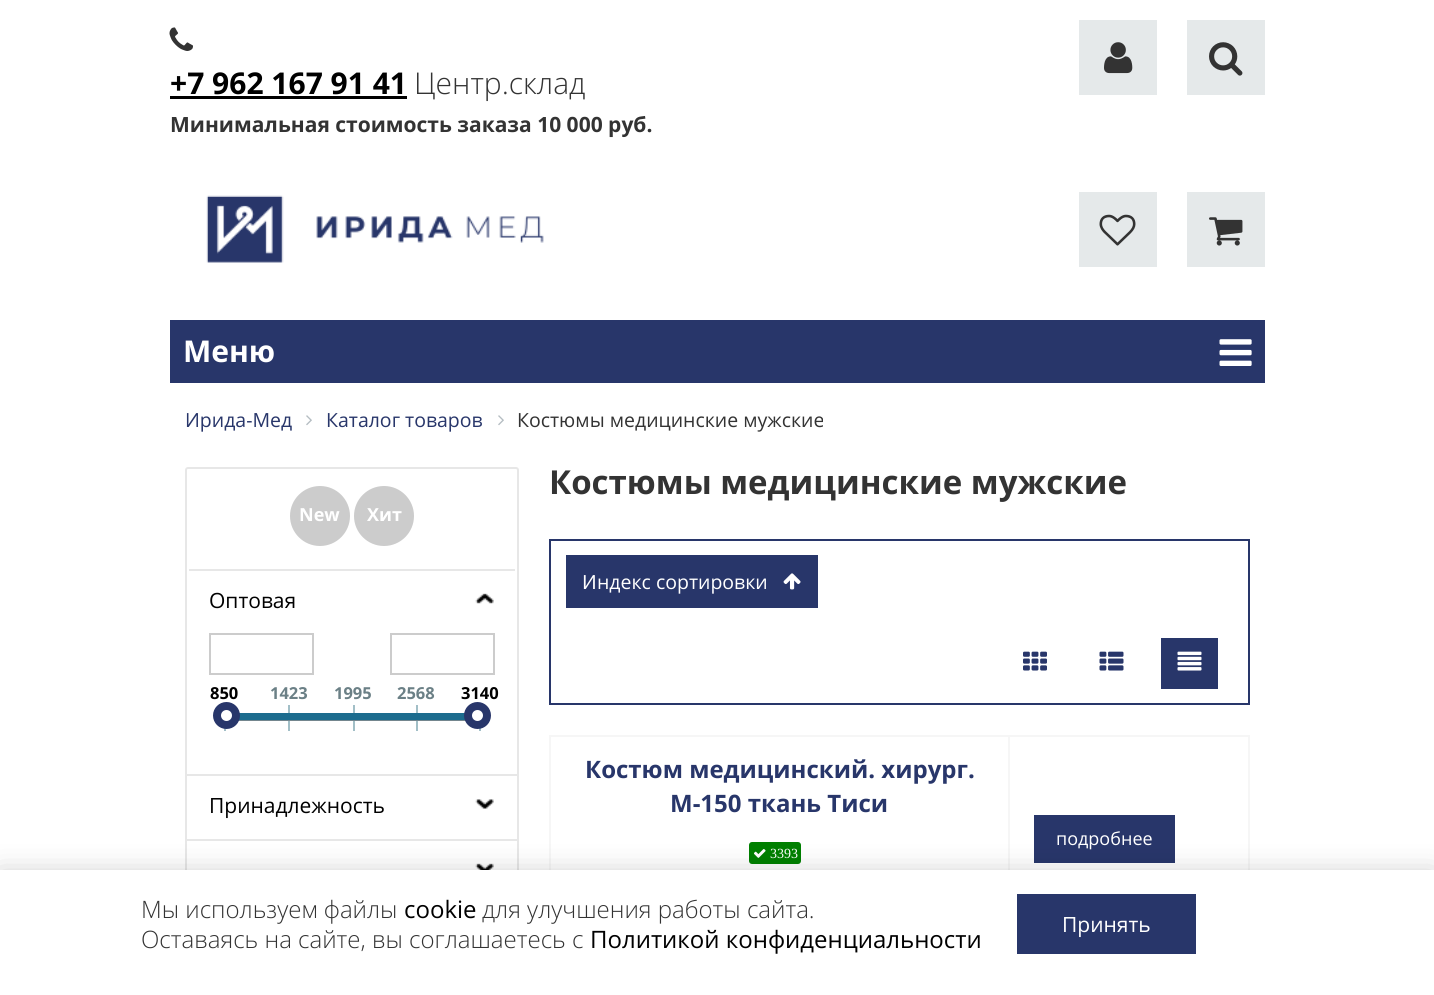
import math
import cairo

surface = cairo.ImageSurface(cairo.FORMAT_RGB24, 1434, 995)
ctx = cairo.Context(surface)
options = cairo.FontOptions()
options.set_hint_metrics(cairo.HINT_METRICS_OFF)
options.set_hint_style(cairo.HINT_STYLE_NONE)
ctx.set_font_options(options)
ctx.set_miter_limit(4)


def set_color(code):
    ctx.set_source_rgb(*(v / 255 for v in bytes.fromhex(code[-6:])))


def draw_text(x, y, s, family, size, color, bold=False, italic=False):
    ctx.select_font_face(family, cairo.FONT_SLANT_ITALIC if italic else cairo.FONT_SLANT_NORMAL, cairo.FONT_WEIGHT_BOLD if bold else cairo.FONT_WEIGHT_NORMAL)
    ctx.set_font_size(size)
    set_color(color)
    ctx.move_to(x, y)
    ctx.show_text(s)


def fill_rect(x, y, w, h, color):
    set_color(color)
    ctx.rectangle(x, y, w, h)
    ctx.fill()


def rounded_rect(x, y, w, h, r):
    ctx.new_sub_path()
    for i, (u, v) in enumerate([(x + w - r, y + h - r), (x + r, y + h - r), (x + r, y + r), (x + w - r, y + r)]):
        ctx.arc(u, v, r, i * math.pi / 2, (i + 1) * math.pi / 2)
    ctx.close_path()


def draw_shadow(x, y, w, h, r, blur, alpha):
    ctx.push_group_with_content(cairo.CONTENT_ALPHA)
    ctx.set_operator(cairo.OPERATOR_SOURCE)
    for i in range(15, -16, -2):
        e = blur * i / 6
        if min(w, h) + 2 * e > 0:
            ctx.set_source_rgba(0, 0, 0, alpha * math.erfc((i - 1) / 8.5) / 2)
            rounded_rect(x - e, y - e, w + 2 * e, h + 2 * e, max(0, min(r + e + blur * .6, min(w, h) / 2 + e)))
            ctx.fill()
    ctx.mask(ctx.pop_group())


def draw_image(path, x, y, w, h):
    ctx.save()
    ctx.set_source_surface(cairo.ImageSurface.create_from_png(path), x, y)
    ctx.rectangle(x, y, w, h)
    ctx.fill()
    ctx.restore()


set_color("#ffffff")
ctx.paint()
draw_image("assets/img1.png", 169, 27, 24, 24)
draw_text(170, 94, "+7 962 167 91 41", "Open Sans", 30, "#000000", bold=True)
fill_rect(170, 96, 237, 3, "#000000")
draw_text(414, 94, "Центр.склад", "Open Sans Light", 30, "#333333")
fill_rect(1079, 20, 78, 75, "#e5e9ea")
draw_image("assets/img2.png", 1104, 42, 29, 32)
fill_rect(1187, 20, 78, 75, "#e5e9ea")
draw_image("assets/img3.png", 1209, 42, 34, 34)
draw_text(170, 132, "Минимальная стоимость заказа 10 000 руб.", "Open Sans", 21, "#333333", bold=True)
draw_image("assets/img4.png", 206, 195, 338, 68)
fill_rect(1079, 192, 78, 75, "#e5e9ea")
draw_image("assets/img5.png", 1099, 214, 37, 32)
fill_rect(1187, 192, 78, 75, "#e5e9ea")
draw_image("assets/img6.png", 1209, 217, 34, 29)
fill_rect(170, 320, 1095, 63, "#28366a")
draw_text(183, 362, "Меню", "Open Sans", 30, "#ffffff", bold=True)
draw_image("assets/img7.png", 1219, 339, 33, 27)
draw_text(185, 427, "Ирида-Мед", "Open Sans", 19.5, "#28366a")
draw_image("assets/img8.png", 306, 415, 6, 11)
draw_text(326, 427, "Каталог товаров", "Open Sans", 19.5, "#28366a")
draw_image("assets/img8.png", 498, 415, 6, 11)
draw_text(517, 427, "Костюмы медицинские мужские", "Open Sans", 19.5, "#333333")
rounded_rect(186, 468, 332, 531, 2)
set_color("#e7e7e7")
ctx.stroke()
set_color("#cccccc")
ctx.arc(320, 516, 29, 0, 2 * math.pi)
ctx.fill_preserve()
ctx.stroke()
draw_text(299, 521, "New", "Open Sans", 18, "#ffffff", bold=True)
set_color("#cccccc")
ctx.new_path()
ctx.arc(384, 516, 29, 0, 2 * math.pi)
ctx.fill_preserve()
ctx.stroke()
draw_text(367, 521, "Хит", "Open Sans", 18, "#ffffff", bold=True)
fill_rect(189, 569, 326, 2, "#e7e7e7")
draw_image("assets/img9.png", 475, 593, 19, 11)
draw_text(209, 608, "Оптовая", "Open Sans", 21, "#000000")
ctx.rectangle(210, 634, 103, 40)
set_color("#cccccc")
ctx.stroke()
ctx.rectangle(391, 634, 103, 40)
ctx.stroke()
fill_rect(224, 728, 2, 3, "#a2bfc7")
draw_text(210, 699, "850", "Open Sans", 16.5, "#000000", bold=True)
fill_rect(288, 705, 2, 26, "#a2bfc7")
draw_text(270, 699, "1423", "Open Sans", 16.5, "#6b8086", bold=True)
fill_rect(353, 705, 2, 26, "#a2bfc7")
draw_text(334, 699, "1995", "Open Sans", 16.5, "#6b8086", bold=True)
fill_rect(416, 705, 2, 26, "#a2bfc7")
draw_text(397, 699, "2568", "Open Sans", 16.5, "#6b8086", bold=True)
fill_rect(479, 728, 2, 3, "#a2bfc7")
draw_text(461, 699, "3140", "Open Sans", 16.5, "#000000", bold=True)
fill_rect(239, 713, 226, 7, "#1c6c8e")
fill_rect(238, 720, 228, 1, "#74868e")
set_color("#ffffff")
ctx.new_path()
ctx.arc(226.5, 715.5, 9.5, 0, 2 * math.pi)
ctx.fill_preserve()
set_color("#28366a")
ctx.set_line_width(8)
ctx.stroke()
set_color("#ffffff")
ctx.arc(477.5, 715.5, 9.5, 0, 2 * math.pi)
ctx.fill_preserve()
set_color("#28366a")
ctx.stroke()
fill_rect(185, 774, 334, 2, "#e7e7e7")
draw_image("assets/img10.png", 475, 799, 19, 10)
draw_text(209, 813, "Принадлежность", "Open Sans", 21, "#000000")
fill_rect(185, 839, 334, 2, "#e7e7e7")
draw_image("assets/img11.png", 475, 863, 19, 7)
draw_text(549, 494, "Костюмы медицинские мужские", "Open Sans", 33, "#333333", bold=True)
ctx.rectangle(550, 540, 699, 164)
set_color("#28366a")
ctx.set_line_width(2)
ctx.stroke()
fill_rect(566, 555, 252, 53, "#28366a")
draw_text(582, 589, "И", "Noto Sans", 19.5, "#ffffff")
draw_text(597, 589, "ндекс сортировки", "Open Sans", 19.5, "#ffffff")
draw_image("assets/img12.png", 783, 573, 18, 17)
draw_image("assets/img13.png", 1023, 651, 24, 20)
draw_image("assets/img14.png", 1099, 651, 25, 20)
fill_rect(1161, 638, 57, 51, "#28366a")
draw_image("assets/img15.png", 1177, 651, 25, 20)
fill_rect(549, 735, 701, 2, "#f6f6f6")
fill_rect(1248, 735, 2, 135, "#f6f6f6")
fill_rect(549, 735, 2, 135, "#f6f6f6")
fill_rect(1008, 735, 2, 135, "#f6f6f6")
draw_text(585, 778, "Костюм медицинский. хирург.", "Open Sans", 24, "#28366a", bold=True)
draw_text(670, 812, "М-150 ткань Тиси", "Open Sans", 24, "#28366a", bold=True)
set_color("#008000")
rounded_rect(749, 842, 52, 22, 3)
ctx.fill()
draw_image("assets/img16.png", 754, 849, 12, 9)
draw_text(770, 858, "3393", "Liberation Serif", 14, "#ffffff")
fill_rect(1034, 815, 141, 48, "#28366a")
draw_text(1056, 845, "подробнее", "Open Sans", 18, "#ffffff")
set_color("#000000")
draw_shadow(0, 876, 1434, 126, 0, 15, 0.25)
fill_rect(0, 870, 1434, 125, "#ffffff")
draw_text(141, 918, "Мы используем файлы", "Open Sans Light", 24, "#333333")
draw_text(404, 918, "cookie", "Open Sans", 24, "#000000")
draw_text(482, 918, "для улучшения работы сайта.", "Open Sans Light", 24, "#333333")
draw_text(141, 948, "Оставаясь на сайте, вы соглашаетесь с", "Open Sans Light", 24, "#333333")
draw_text(590, 948, "Политикой конфиденциальности", "Open Sans", 24, "#000000")
fill_rect(1017, 894, 179, 60, "#28366a")
draw_text(1062, 932, "Принять", "Open Sans", 21, "#ffffff")
surface.write_to_png("output.png")
